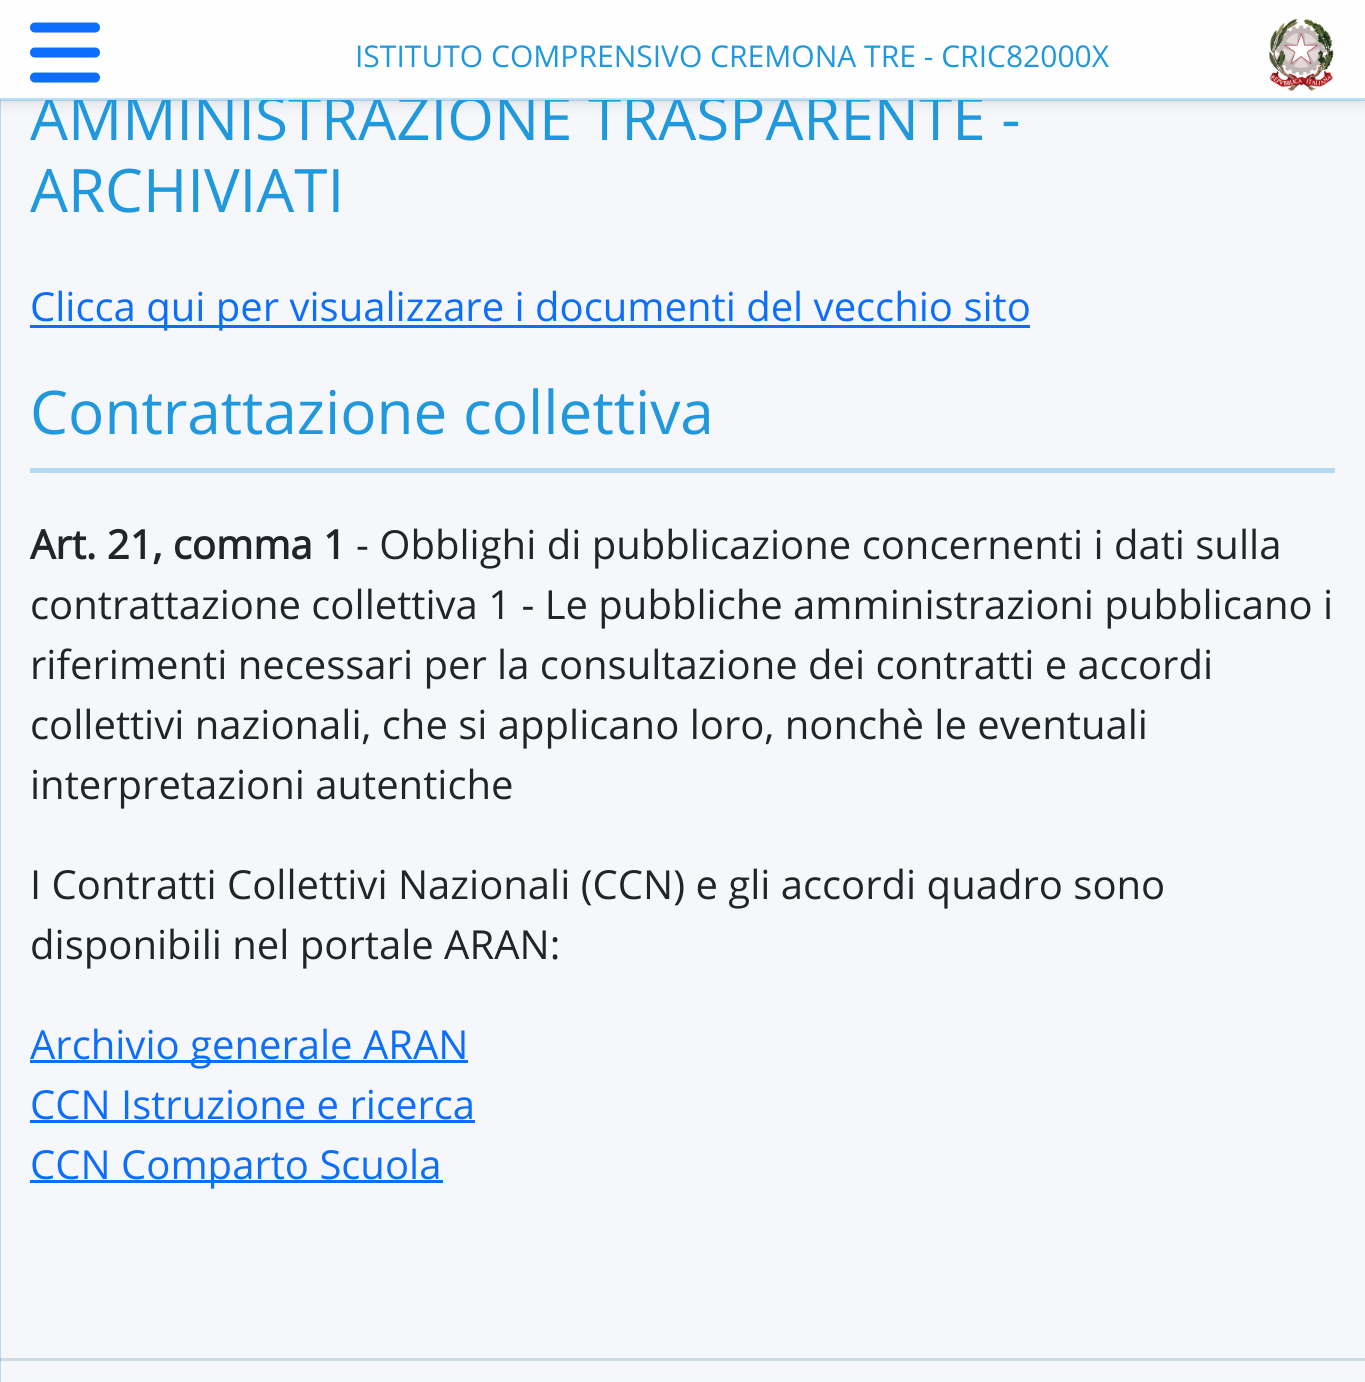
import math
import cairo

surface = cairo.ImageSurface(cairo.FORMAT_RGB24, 1365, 1382)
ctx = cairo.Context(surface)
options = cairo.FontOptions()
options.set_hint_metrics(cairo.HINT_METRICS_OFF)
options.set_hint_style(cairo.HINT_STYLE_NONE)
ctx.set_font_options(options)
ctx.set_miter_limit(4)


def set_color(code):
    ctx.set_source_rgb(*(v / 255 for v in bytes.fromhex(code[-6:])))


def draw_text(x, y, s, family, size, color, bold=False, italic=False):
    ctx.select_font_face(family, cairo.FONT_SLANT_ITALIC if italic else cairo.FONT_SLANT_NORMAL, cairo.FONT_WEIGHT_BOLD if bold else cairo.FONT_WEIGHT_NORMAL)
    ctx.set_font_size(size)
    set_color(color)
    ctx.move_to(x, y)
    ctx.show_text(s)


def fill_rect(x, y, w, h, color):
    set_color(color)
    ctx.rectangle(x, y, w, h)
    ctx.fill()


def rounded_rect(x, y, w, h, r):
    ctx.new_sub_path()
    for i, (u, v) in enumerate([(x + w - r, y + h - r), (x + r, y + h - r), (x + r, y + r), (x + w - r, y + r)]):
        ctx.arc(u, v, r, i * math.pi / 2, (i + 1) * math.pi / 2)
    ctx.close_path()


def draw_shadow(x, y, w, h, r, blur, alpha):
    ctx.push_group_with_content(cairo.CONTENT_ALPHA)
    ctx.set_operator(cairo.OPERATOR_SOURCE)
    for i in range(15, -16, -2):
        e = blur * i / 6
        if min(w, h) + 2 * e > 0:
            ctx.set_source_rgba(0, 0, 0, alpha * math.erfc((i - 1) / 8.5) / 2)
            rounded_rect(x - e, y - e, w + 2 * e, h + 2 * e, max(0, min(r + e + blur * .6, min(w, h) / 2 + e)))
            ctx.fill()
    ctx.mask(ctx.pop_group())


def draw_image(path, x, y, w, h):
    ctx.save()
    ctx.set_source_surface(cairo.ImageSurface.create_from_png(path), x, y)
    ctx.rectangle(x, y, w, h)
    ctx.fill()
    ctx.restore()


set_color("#f5f7fa")
ctx.paint()
fill_rect(0, 100, 1, 1282, "#b5daf2")
set_color("#000000")
draw_shadow(0, 0, 1365, 100, 0, 9, 0.15)
draw_text(30, 140, "AMMINISTRAZIONE TRASPARENTE -", "Open Sans", 60, "#1f98de")
fill_rect(0, 0, 1365, 100, "#fefefe")
ctx.set_source_rgba(0.122, 0.596, 0.871, 0.3)
ctx.rectangle(0, 98, 1365, 3)
ctx.fill()
draw_image("assets/img1.png", 30, 22, 70, 61)
draw_text(355, 67, "ISTITUTO COMPRENSIVO CREMONA TRE - CRIC82000X", "Open Sans", 30, "#1f98de")
draw_image("assets/img2.png", 1267, 18, 68, 74)
draw_text(30, 212, "ARCHIVIATI", "Open Sans", 60, "#1f98de")
fill_rect(30, 325, 1000, 3, "#0d6efd")
draw_text(30, 321, "Clicca qui per visualizzare i documenti del vecchio sito", "Open Sans", 40, "#0d6efd")
fill_rect(30, 468, 1305, 5, "#b5dbf2")
draw_text(30, 434, "Contrattazione collettiva", "Open Sans", 60.25, "#1f98de")
draw_text(30, 559, "Art. 21, comma 1", "Open Sans", 40, "#212529", bold=True)
draw_text(356, 559, "- Obblighi di pubblicazione concernenti i dati sulla", "Open Sans", 40, "#212529")
draw_text(30, 619, "contrattazione collettiva 1 - Le pubbliche amministrazioni pubblicano i", "Open Sans", 40, "#212529")
draw_text(30, 679, "riferimenti necessari per la consultazione dei contratti e accordi", "Open Sans", 40, "#212529")
draw_text(30, 739, "collettivi nazionali, che si applicano loro, nonchè le eventuali", "Open Sans", 40, "#212529")
draw_text(30, 799, "interpretazioni autentiche", "Open Sans", 40, "#212529")
draw_text(30, 899, "I Contratti Collettivi Nazionali (CCN) e gli accordi quadro sono", "Open Sans", 40, "#212529")
draw_text(30, 959, "disponibili nel portale ARAN:", "Open Sans", 40, "#212529")
fill_rect(30, 1060, 438, 3, "#0d6efd")
draw_text(30, 1059, "Archivio generale ARAN", "Open Sans", 40, "#0d6efd")
draw_text(30, 1119, "CCN Istruzione e ricerca", "Open Sans", 40, "#0d6efd")
fill_rect(30, 1120, 445, 3, "#0d6efd")
fill_rect(30, 1180, 413, 3, "#0d6efd")
draw_text(30, 1179, "CCN Comparto Scuola", "Open Sans", 40, "#0d6efd")
fill_rect(0, 1358, 1365, 3, "#cfdbe2")
fill_rect(0, 1358, 1, 3, "#9ac7e1")
surface.write_to_png("output.png")
